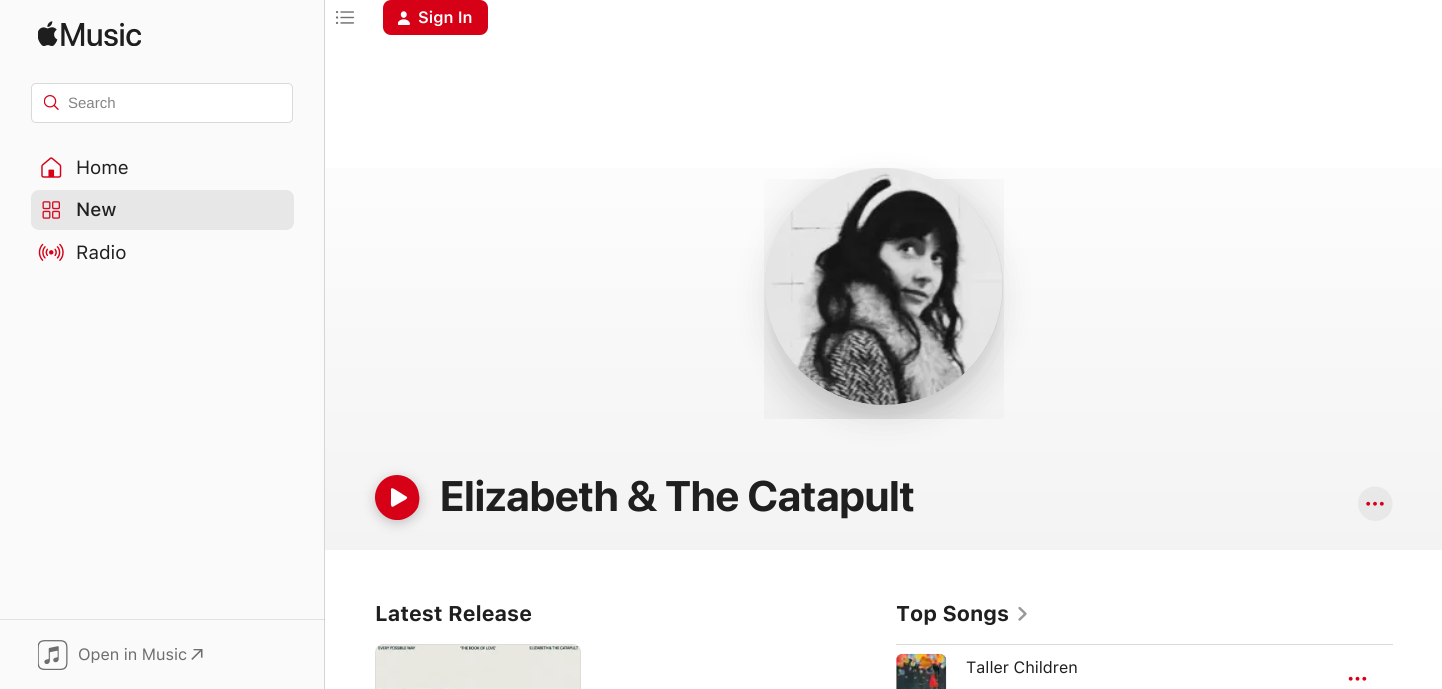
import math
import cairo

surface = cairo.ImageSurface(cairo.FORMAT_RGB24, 1442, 689)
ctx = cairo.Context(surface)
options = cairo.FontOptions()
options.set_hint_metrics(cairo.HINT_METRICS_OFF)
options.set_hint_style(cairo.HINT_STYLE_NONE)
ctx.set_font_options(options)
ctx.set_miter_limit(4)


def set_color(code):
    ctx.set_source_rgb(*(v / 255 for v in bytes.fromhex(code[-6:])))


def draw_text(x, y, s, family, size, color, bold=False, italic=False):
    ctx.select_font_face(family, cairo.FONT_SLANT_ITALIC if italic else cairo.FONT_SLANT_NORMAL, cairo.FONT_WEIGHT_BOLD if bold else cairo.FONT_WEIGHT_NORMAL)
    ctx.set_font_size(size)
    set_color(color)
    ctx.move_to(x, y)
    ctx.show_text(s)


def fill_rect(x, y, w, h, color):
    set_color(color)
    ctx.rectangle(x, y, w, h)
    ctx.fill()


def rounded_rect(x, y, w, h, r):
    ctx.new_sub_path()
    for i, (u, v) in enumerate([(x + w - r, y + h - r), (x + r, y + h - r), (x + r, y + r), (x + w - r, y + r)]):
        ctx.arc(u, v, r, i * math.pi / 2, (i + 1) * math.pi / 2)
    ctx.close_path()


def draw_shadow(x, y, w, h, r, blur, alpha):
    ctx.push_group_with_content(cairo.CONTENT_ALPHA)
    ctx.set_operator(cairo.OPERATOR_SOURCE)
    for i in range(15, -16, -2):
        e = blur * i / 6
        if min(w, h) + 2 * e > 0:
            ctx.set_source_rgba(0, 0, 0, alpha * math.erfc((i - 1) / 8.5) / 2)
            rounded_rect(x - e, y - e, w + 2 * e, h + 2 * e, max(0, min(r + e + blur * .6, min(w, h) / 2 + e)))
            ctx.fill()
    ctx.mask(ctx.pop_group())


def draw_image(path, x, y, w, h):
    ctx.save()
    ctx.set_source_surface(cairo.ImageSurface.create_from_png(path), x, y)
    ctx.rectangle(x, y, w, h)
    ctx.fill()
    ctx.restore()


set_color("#ffffff")
ctx.paint()
draw_image("assets/img1.png", 335, 11, 20, 13)
set_color("#d60017")
rounded_rect(383, 0, 105, 35, 8)
ctx.fill()
draw_image("assets/img2.png", 398, 11, 12, 14)
draw_text(418, 23, "Sign In", "SF SemiBold", 16.25, "#ffffff")
fill_rect(0, 0, 324, 689, "#fafafa")
fill_rect(0, 619, 325, 1, "#e1e1e1")
fill_rect(324, 0, 1, 689, "#d5d5d5")
fill_rect(324, 619, 1, 1, "#c0c0c0")
draw_image("assets/img3.png", 38, 21, 103, 25)
set_color("#ffffff")
rounded_rect(31.5, 83.5, 261, 39, 4.5)
ctx.fill_preserve()
set_color("#d9d9d9")
ctx.set_line_width(1)
ctx.stroke()
draw_image("assets/img4.png", 44, 95, 15, 15)
draw_text(68, 108, "Search", "Liberation Sans", 15, "#858585")
draw_image("assets/img5.png", 41, 157, 21, 21)
draw_text(76, 174, "Home", "SF", 19, "#1f1f1f")
set_color("#e7e7e8")
rounded_rect(31, 190, 263, 40, 8)
ctx.fill()
draw_image("assets/img6.png", 42, 201, 18, 18)
draw_text(76, 216, "New", "SF Medium", 19, "#1f1f1f")
draw_image("assets/img7.png", 38, 243, 26, 18)
draw_text(76, 259, "Radio", "SF", 19, "#1f1f1f")
draw_image("assets/img8.png", 38, 640, 30, 30)
draw_text(78, 660, "Open in Music", "SF", 16.25, "#6e6e6e")
draw_image("assets/img9.png", 191, 649, 12, 11)
gradient = cairo.LinearGradient(884, 67, 884, 550)
gradient.add_color_stop_rgba(0, 1, 1, 1, 1)
gradient.add_color_stop_rgba(1, 0.953, 0.953, 0.953, 1)
ctx.set_source(gradient)
ctx.rectangle(325, 168, 1117, 382)
ctx.fill()
set_color("#000000")
draw_shadow(765, 180, 238, 238, 119, 15.5, 0.1)
draw_image("assets/img11.png", 764, 179, 240, 240)
ctx.set_source_rgba(0.502, 0.502, 0.502, 0.04)
ctx.new_path()
ctx.move_to(884, 180)
ctx.curve_to(950, 180, 1003, 233, 1003, 299)
ctx.curve_to(1003, 365, 950, 418, 884, 418)
ctx.curve_to(818, 418, 765, 365, 765, 299)
ctx.curve_to(765, 233, 818, 180, 884, 180)
ctx.close_path()
ctx.fill()
draw_image("assets/img10.png", 765, 168, 237, 237)
ctx.set_source_rgba(0.502, 0.502, 0.502, 0.1)
ctx.new_path()
ctx.move_to(884, 168)
ctx.curve_to(950, 168, 1003, 221, 1003, 286)
ctx.curve_to(1003, 352, 950, 405, 884, 405)
ctx.curve_to(818, 405, 765, 352, 765, 286)
ctx.curve_to(765, 221, 818, 168, 884, 168)
ctx.close_path()
ctx.fill()
set_color("#000000")
draw_shadow(375, 478, 45, 45, 22.5, 6, 0.2)
ctx.save()
ctx.rectangle(375, 475, 45, 45)
ctx.clip()
set_color("#d60017")
ctx.new_path()
ctx.move_to(377, 488)
ctx.curve_to(387, 467, 417, 473, 419, 495)
ctx.curve_to(420, 499, 419, 503, 418, 507)
ctx.curve_to(416, 511, 413, 514, 410, 516)
ctx.curve_to(391, 529, 368, 509, 377, 488)
ctx.close_path()
ctx.fill()
ctx.restore()
set_color("#ffffff")
ctx.new_path()
ctx.move_to(393.5, 506.5)
ctx.curve_to(390, 508.5, 391, 501, 391, 500)
ctx.line_to(391, 489)
ctx.curve_to(392, 486.5, 397, 491, 397.5, 491)
ctx.line_to(407, 497)
ctx.curve_to(408, 499, 403, 501, 402, 501.5)
ctx.close_path()
ctx.fill()
draw_text(440, 511, "Elizabeth & The Catapult", "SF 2", 42.5, "#1f1f1f", bold=True)
draw_image("assets/img12.png", 1358, 486, 35, 35)
draw_text(375, 621, "Latest Release", "SF", 21.25, "#1f1f1f", bold=True)
draw_image("assets/img13.png", 375, 644, 206, 45)
rounded_rect(375.5, 644.5, 205, 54, 8.5)
ctx.set_source_rgba(0.502, 0.502, 0.502, 0.1)
ctx.stroke()
draw_text(896, 621, "Top Songs", "SF", 21.25, "#1f1f1f", bold=True)
draw_image("assets/img14.png", 1018, 606, 9, 15)
fill_rect(896, 644, 497, 1, "#d9d9d9")
draw_image("assets/img15.png", 896, 653, 51, 36)
rounded_rect(896.5, 654.5, 49, 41, 5.5)
ctx.set_source_rgba(0.502, 0.502, 0.502, 0.1)
ctx.stroke()
draw_text(966, 673, "Taller Children", "SF", 16.25, "#1f1f1f")
draw_image("assets/img16.png", 1348, 676, 19, 5)
surface.write_to_png("output.png")
